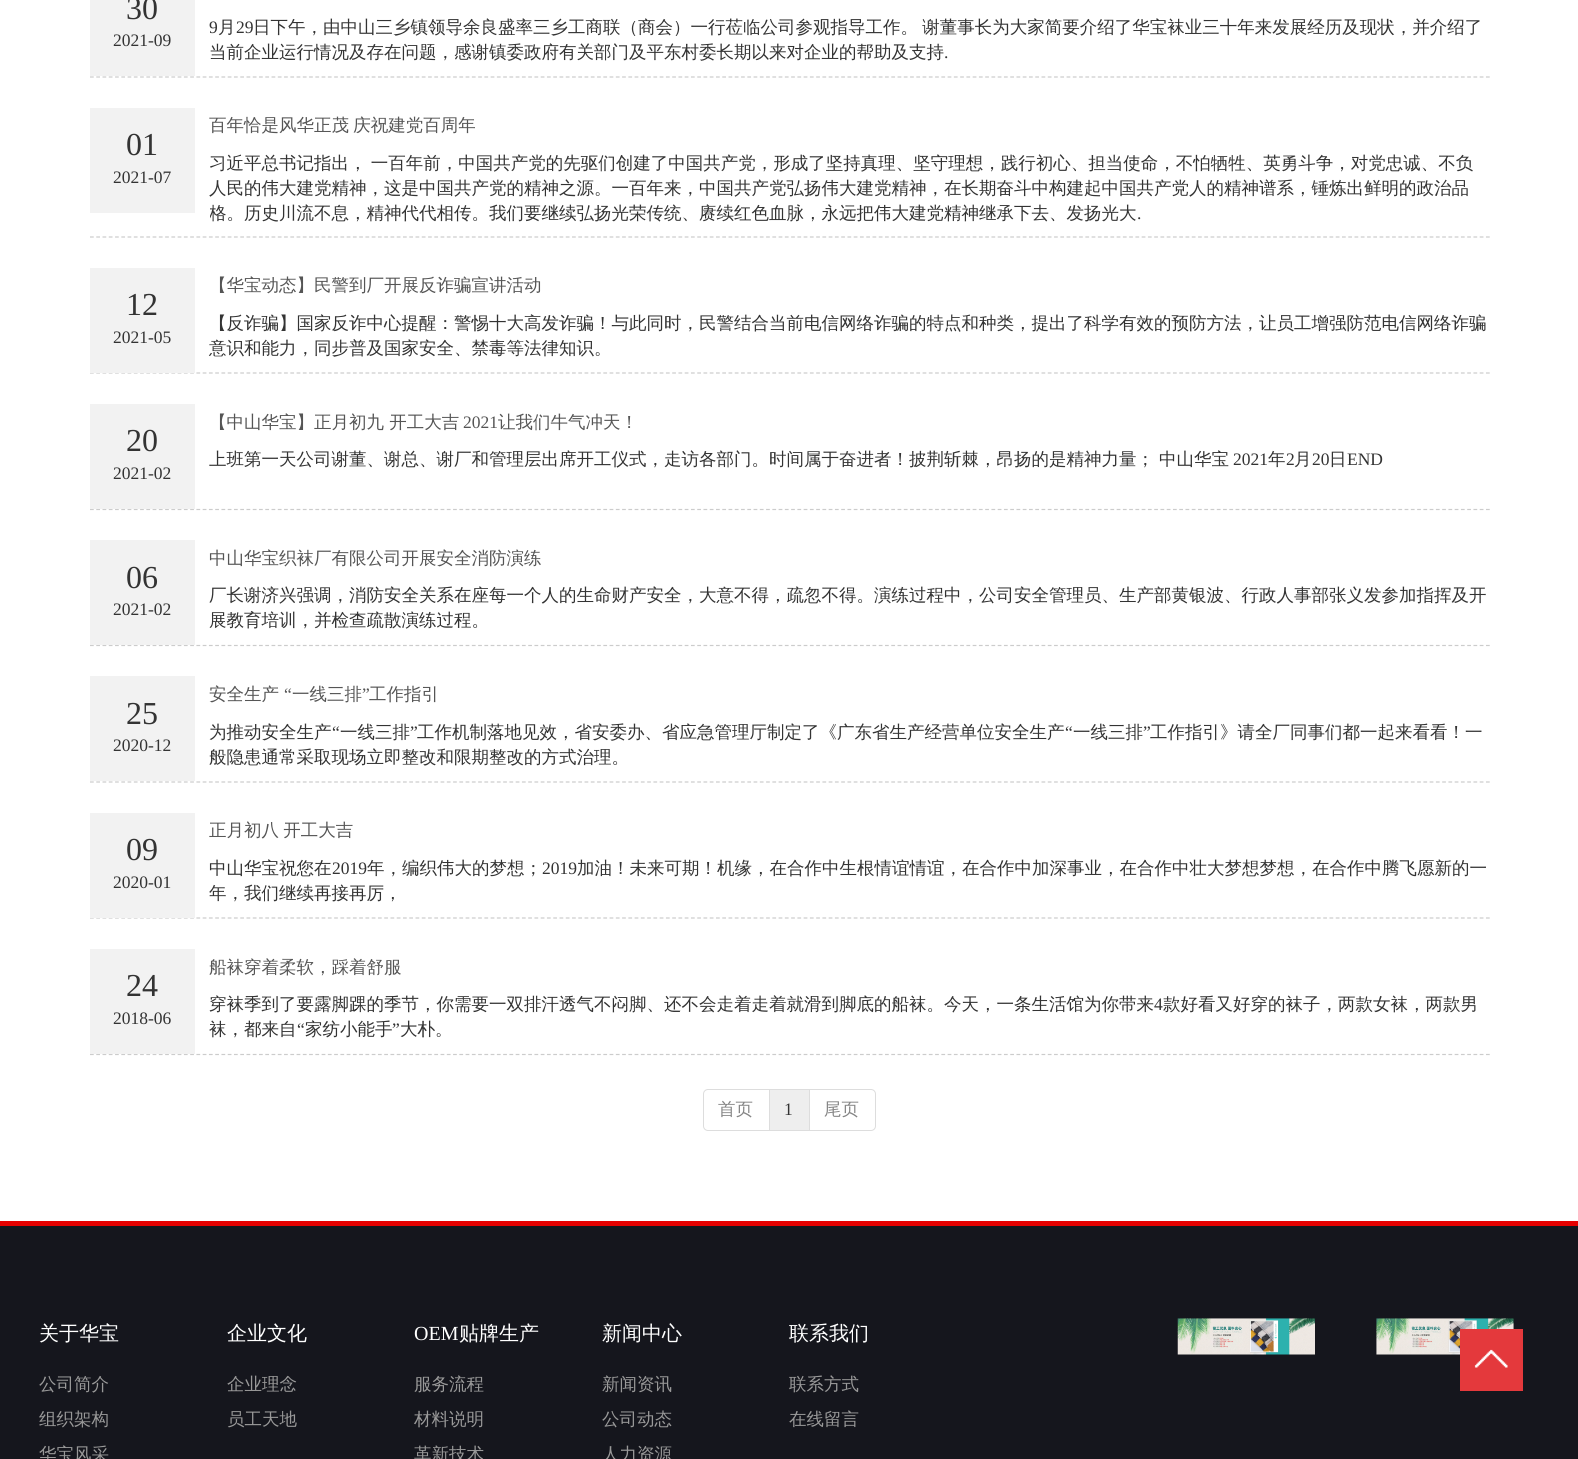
import math
import cairo

surface = cairo.ImageSurface(cairo.FORMAT_RGB24, 1578, 1459)
ctx = cairo.Context(surface)
options = cairo.FontOptions()
options.set_hint_metrics(cairo.HINT_METRICS_OFF)
options.set_hint_style(cairo.HINT_STYLE_NONE)
ctx.set_font_options(options)
ctx.set_miter_limit(4)


def set_color(code):
    ctx.set_source_rgb(*(v / 255 for v in bytes.fromhex(code[-6:])))


def draw_text(x, y, s, family, size, color, bold=False, italic=False):
    ctx.select_font_face(family, cairo.FONT_SLANT_ITALIC if italic else cairo.FONT_SLANT_NORMAL, cairo.FONT_WEIGHT_BOLD if bold else cairo.FONT_WEIGHT_NORMAL)
    ctx.set_font_size(size)
    set_color(color)
    ctx.move_to(x, y)
    ctx.show_text(s)


def draw_spaced(x, y, s, letter, word):
    ctx.move_to(x, y)
    for ch in s:
        ctx.show_text(ch)
        ctx.rel_move_to(letter + word * (ch == ' '), 0)


def fill_rect(x, y, w, h, color):
    set_color(color)
    ctx.rectangle(x, y, w, h)
    ctx.fill()


def draw_image(path, x, y, w, h):
    ctx.save()
    ctx.set_source_surface(cairo.ImageSurface.create_from_png(path), x, y)
    ctx.rectangle(x, y, w, h)
    ctx.fill()
    ctx.restore()


set_color("#ffffff")
ctx.paint()
ctx.new_path()
ctx.move_to(90, 77)
ctx.line_to(1490, 77)
set_color("#cccccc")
ctx.set_line_width(1.2)
ctx.set_dash([3.75, 2.51])
ctx.stroke()
fill_rect(90, 0, 105, 76, "#f2f2f2")
draw_text(126, 19, "30", "Liberation Serif", 32, "#333333")
draw_text(113, 46, "2021-09", "Liberation Serif", 17.5, "#333333")
draw_text(209, 33, "9", "Liberation Serif", 17.5, "#333333")
draw_text(218, 33, "月", "WenQuanYi Zen Hei Medium", 17.5, "#333333")
draw_text(236, 33, "29", "Liberation Serif", 17.5, "#333333")
ctx.select_font_face("WenQuanYi Zen Hei Medium")
draw_spaced(253, 33, "日下午，由中山三乡镇领导余良盛率三乡工商联（商会）一行莅临公司参观指导工作。 谢董事长为大家简要介绍了华宝袜业三十年来发展经历及现状，并介绍了", 0, -1)
draw_text(209, 58, "当前企业运行情况及存在问题，感谢镇委政府有关部门及平东村委长期以来对企业的帮助及支持", "WenQuanYi Zen Hei Medium", 17.5, "#333333")
draw_text(944, 58, ".", "Liberation Serif", 17.5, "#333333")
ctx.new_path()
ctx.move_to(90, 237)
ctx.line_to(1490, 237)
set_color("#cccccc")
ctx.stroke()
ctx.select_font_face("WenQuanYi Zen Hei Medium")
set_color("#555555")
draw_spaced(209, 131, "百年恰是风华正茂 庆祝建党百周年", 0, -1)
fill_rect(90, 108, 105, 105, "#f2f2f2")
draw_text(126, 155, "01", "Liberation Serif", 32, "#333333")
draw_text(113, 183, "2021-07", "Liberation Serif", 17.5, "#333333")
ctx.select_font_face("WenQuanYi Zen Hei Medium")
draw_spaced(209, 169, "习近平总书记指出， 一百年前，中国共产党的先驱们创建了中国共产党，形成了坚持真理、坚守理想，践行初心、担当使命，不怕牺牲、英勇斗争，对党忠诚、不负", 0, -1)
draw_text(209, 194, "人民的伟大建党精神，这是中国共产党的精神之源。一百年来，中国共产党弘扬伟大建党精神，在长期奋斗中构建起中国共产党人的精神谱系，锤炼出鲜明的政治品", "WenQuanYi Zen Hei Medium", 17.5, "#333333")
ctx.save()
ctx.rectangle(210, 151, 1280, 75)
ctx.clip()
draw_text(209, 219, "格。历史川流不息，精神代代相传。我们要继续弘扬光荣传统、赓续红色血脉，永远把伟大建党精神继承下去、发扬光大", "WenQuanYi Zen Hei Medium", 17.5, "#333333")
ctx.restore()
draw_text(1137, 219, ".", "Liberation Serif", 17.5, "#333333")
ctx.new_path()
ctx.move_to(90, 373)
ctx.line_to(1490, 373)
set_color("#cccccc")
ctx.stroke()
draw_text(209, 291, "【华宝动态】民警到厂开展反诈骗宣讲活动", "WenQuanYi Zen Hei Medium", 17.5, "#555555")
fill_rect(90, 268, 105, 105, "#f2f2f2")
draw_text(126, 315, "12", "Liberation Serif", 32, "#333333")
draw_text(113, 343, "2021-05", "Liberation Serif", 17.5, "#333333")
draw_text(209, 329, "【反诈骗】国家反诈中心提醒：警惕十大高发诈骗！与此同时，民警结合当前电信网络诈骗的特点和种类，提出了科学有效的预防方法，让员工增强防范电信网络诈骗", "WenQuanYi Zen Hei Medium", 17.5, "#333333")
draw_text(209, 354, "意识和能力，同步普及国家安全、禁毒等法律知识。", "WenQuanYi Zen Hei Medium", 17.5, "#333333")
ctx.new_path()
ctx.move_to(90, 509.5)
ctx.line_to(1490, 509.5)
set_color("#cccccc")
ctx.stroke()
draw_text(209, 428, "【中山华宝】正月初九 开工大吉", "WenQuanYi Zen Hei Medium", 17.5, "#555555")
draw_text(463, 428, "2021", "Liberation Serif", 17.5, "#555555")
draw_text(498, 428, "让我们牛气冲天！", "WenQuanYi Zen Hei Medium", 17.5, "#555555")
fill_rect(90, 404, 105, 105, "#f2f2f2")
draw_text(126, 451, "20", "Liberation Serif", 32, "#333333")
draw_text(113, 479, "2021-02", "Liberation Serif", 17.5, "#333333")
draw_text(209, 465, "上班第一天公司谢董、谢总、谢厂和管理层出席开工仪式，走访各部门。时间属于奋进者！披荆斩棘，昂扬的是精神力量；", "WenQuanYi Zen Hei Medium", 17.5, "#333333")
draw_text(1159, 465, "中山华宝", "WenQuanYi Zen Hei Medium", 17.5, "#333333")
draw_text(1233, 465, "2021", "Liberation Serif", 17.5, "#333333")
draw_text(1268, 465, "年", "WenQuanYi Zen Hei Medium", 17.5, "#333333")
draw_text(1286, 465, "2", "Liberation Serif", 17.5, "#333333")
draw_text(1294, 465, "月", "WenQuanYi Zen Hei Medium", 17.5, "#333333")
draw_text(1312, 465, "20", "Liberation Serif", 17.5, "#333333")
draw_text(1329, 465, "日", "WenQuanYi Zen Hei Medium", 17.5, "#333333")
draw_text(1347, 465, "END", "Liberation Serif", 17.5, "#333333")
ctx.new_path()
ctx.move_to(90, 645.5)
ctx.line_to(1490, 645.5)
set_color("#cccccc")
ctx.stroke()
draw_text(209, 564, "中山华宝织袜厂有限公司开展安全消防演练", "WenQuanYi Zen Hei Medium", 17.5, "#555555")
fill_rect(90, 540, 105, 105, "#f2f2f2")
draw_text(126, 588, "06", "Liberation Serif", 32, "#333333")
draw_text(113, 615, "2021-02", "Liberation Serif", 17.5, "#333333")
draw_text(209, 601, "厂长谢济兴强调，消防安全关系在座每一个人的生命财产安全，大意不得，疏忽不得。演练过程中，公司安全管理员、生产部黄银波、行政人事部张义发参加指挥及开", "WenQuanYi Zen Hei Medium", 17.5, "#333333")
draw_text(209, 626, "展教育培训，并检查疏散演练过程。", "WenQuanYi Zen Hei Medium", 17.5, "#333333")
ctx.new_path()
ctx.move_to(90, 782)
ctx.line_to(1490, 782)
set_color("#cccccc")
ctx.stroke()
draw_text(209, 700, "安全生产", "WenQuanYi Zen Hei Medium", 17.5, "#555555")
draw_text(284, 700, "“", "Liberation Serif", 17.5, "#555555")
draw_text(292, 700, "一线三排", "WenQuanYi Zen Hei Medium", 17.5, "#555555")
draw_text(362, 700, "”", "Liberation Serif", 17.5, "#555555")
draw_text(369, 700, "工作指引", "WenQuanYi Zen Hei Medium", 17.5, "#555555")
fill_rect(90, 676, 105, 105, "#f2f2f2")
draw_text(126, 724, "25", "Liberation Serif", 32, "#333333")
draw_text(113, 751, "2020-12", "Liberation Serif", 17.5, "#333333")
draw_text(209, 738, "为推动安全生产", "WenQuanYi Zen Hei Medium", 17.5, "#333333")
draw_text(332, 738, "“", "Liberation Serif", 17.5, "#333333")
draw_text(340, 738, "一线三排", "WenQuanYi Zen Hei Medium", 17.5, "#333333")
draw_text(410, 738, "”", "Liberation Serif", 17.5, "#333333")
draw_text(417, 738, "工作机制落地见效，省安委办、省应急管理厅制定了《广东省生产经营单位安全生产", "WenQuanYi Zen Hei Medium", 17.5, "#333333")
draw_text(1065, 738, "“", "Liberation Serif", 17.5, "#333333")
draw_text(1073, 738, "一线三排", "WenQuanYi Zen Hei Medium", 17.5, "#333333")
draw_text(1143, 738, "”", "Liberation Serif", 17.5, "#333333")
draw_text(1150, 738, "工作指引》请全厂同事们都一起来看看！一", "WenQuanYi Zen Hei Medium", 17.5, "#333333")
draw_text(209, 763, "般隐患通常采取现场立即整改和限期整改的方式治理。", "WenQuanYi Zen Hei Medium", 17.5, "#333333")
ctx.new_path()
ctx.move_to(90, 918)
ctx.line_to(1490, 918)
set_color("#cccccc")
ctx.stroke()
set_color("#555555")
draw_spaced(209, 836, "正月初八 开工大吉", 0, -1)
fill_rect(90, 813, 105, 105, "#f2f2f2")
draw_text(126, 860, "09", "Liberation Serif", 32, "#333333")
draw_text(113, 888, "2020-01", "Liberation Serif", 17.5, "#333333")
draw_text(209, 874, "中山华宝祝您在", "WenQuanYi Zen Hei Medium", 17.5, "#333333")
draw_text(332, 874, "2019", "Liberation Serif", 17.5, "#333333")
draw_text(367, 874, "年，编织伟大的梦想；", "WenQuanYi Zen Hei Medium", 17.5, "#333333")
draw_text(542, 874, "2019", "Liberation Serif", 17.5, "#333333")
draw_text(577, 874, "加油！未来可期！机缘，在合作中生根情谊情谊，在合作中加深事业，在合作中壮大梦想梦想，在合作中腾飞愿新的一", "WenQuanYi Zen Hei Medium", 17.5, "#333333")
draw_text(209, 899, "年，我们继续再接再厉，", "WenQuanYi Zen Hei Medium", 17.5, "#333333")
ctx.new_path()
ctx.move_to(90, 1054.5)
ctx.line_to(1490, 1054.5)
set_color("#cccccc")
ctx.stroke()
draw_text(209, 973, "船袜穿着柔软，踩着舒服", "WenQuanYi Zen Hei Medium", 17.5, "#555555")
fill_rect(90, 949, 105, 105, "#f2f2f2")
draw_text(126, 996, "24", "Liberation Serif", 32, "#333333")
draw_text(113, 1024, "2018-06", "Liberation Serif", 17.5, "#333333")
draw_text(209, 1010, "穿袜季到了要露脚踝的季节，你需要一双排汗透气不闷脚、还不会走着走着就滑到脚底的船袜。今天，一条生活馆为你带来", "WenQuanYi Zen Hei Medium", 17.5, "#333333")
draw_text(1154, 1010, "4", "Liberation Serif", 17.5, "#333333")
draw_text(1163, 1010, "款好看又好穿的袜子，两款女袜，两款男", "WenQuanYi Zen Hei Medium", 17.5, "#333333")
draw_text(209, 1035, "袜，都来自", "WenQuanYi Zen Hei Medium", 17.5, "#333333")
draw_text(297, 1035, "“", "Liberation Serif", 17.5, "#333333")
draw_text(305, 1035, "家纺小能手", "WenQuanYi Zen Hei Medium", 17.5, "#333333")
draw_text(392, 1035, "”", "Liberation Serif", 17.5, "#333333")
draw_text(400, 1035, "大朴。", "WenQuanYi Zen Hei Medium", 17.5, "#333333")
ctx.new_path()
ctx.move_to(708, 1089.5)
ctx.line_to(769.5, 1089.5)
ctx.line_to(769.5, 1130.5)
ctx.line_to(708, 1130.5)
ctx.curve_to(705.5, 1130.5, 703.5, 1128.5, 703.5, 1126)
ctx.line_to(703.5, 1094)
ctx.curve_to(703.5, 1091.5, 705.5, 1089.5, 708, 1089.5)
ctx.close_path()
set_color("#dddddd")
ctx.set_line_width(1)
ctx.set_dash([])
ctx.stroke()
draw_text(718, 1115, "首页", "WenQuanYi Zen Hei Medium", 17.5, "#858585")
ctx.new_path()
ctx.move_to(809.5, 1089.5)
ctx.line_to(871, 1089.5)
ctx.curve_to(873.5, 1089.5, 875.5, 1091.5, 875.5, 1094)
ctx.line_to(875.5, 1126)
ctx.curve_to(875.5, 1128.5, 873.5, 1130.5, 871, 1130.5)
ctx.line_to(809.5, 1130.5)
ctx.close_path()
set_color("#dddddd")
ctx.stroke()
set_color("#eeeeee")
ctx.rectangle(769.5, 1089.5, 40, 41)
ctx.fill_preserve()
set_color("#dddddd")
ctx.stroke()
draw_text(784, 1115, "1", "Liberation Serif", 17.5, "#333333")
draw_text(824, 1115, "尾页", "WenQuanYi Zen Hei Medium", 17.5, "#858585")
fill_rect(0, 1226, 1578, 233, "#15161d")
fill_rect(0, 1221, 1578, 5, "#e60000")
draw_text(39, 1340, "关于华宝", "WenQuanYi Zen Hei Medium", 20, "#ffffff")
draw_text(39, 1390, "公司简介", "WenQuanYi Zen Hei Medium", 17.5, "#999999")
draw_text(39, 1425, "组织架构", "WenQuanYi Zen Hei Medium", 17.5, "#999999")
draw_text(39, 1460, "华宝风采", "WenQuanYi Zen Hei Medium", 17.5, "#999999")
draw_text(227, 1340, "企业文化", "WenQuanYi Zen Hei Medium", 20, "#ffffff")
draw_text(227, 1390, "企业理念", "WenQuanYi Zen Hei Medium", 17.5, "#999999")
draw_text(227, 1425, "员工天地", "WenQuanYi Zen Hei Medium", 17.5, "#999999")
draw_text(414, 1340, "OEM", "Liberation Serif", 20, "#ffffff")
draw_text(459, 1340, "贴牌生产", "WenQuanYi Zen Hei Medium", 20, "#ffffff")
draw_text(414, 1390, "服务流程", "WenQuanYi Zen Hei Medium", 17.5, "#999999")
draw_text(414, 1425, "材料说明", "WenQuanYi Zen Hei Medium", 17.5, "#999999")
draw_text(414, 1460, "革新技术", "WenQuanYi Zen Hei Medium", 17.5, "#999999")
draw_text(602, 1340, "新闻中心", "WenQuanYi Zen Hei Medium", 20, "#ffffff")
draw_text(602, 1390, "新闻资讯", "WenQuanYi Zen Hei Medium", 17.5, "#999999")
draw_text(602, 1425, "公司动态", "WenQuanYi Zen Hei Medium", 17.5, "#999999")
draw_text(602, 1460, "人力资源", "WenQuanYi Zen Hei Medium", 17.5, "#999999")
draw_text(789, 1340, "联系我们", "WenQuanYi Zen Hei Medium", 20, "#ffffff")
draw_text(789, 1390, "联系方式", "WenQuanYi Zen Hei Medium", 17.5, "#999999")
draw_text(789, 1425, "在线留言", "WenQuanYi Zen Hei Medium", 17.5, "#999999")
draw_image("assets/img1.png", 1177, 1318, 138, 37)
draw_image("assets/img2.png", 1376, 1318, 138, 37)
fill_rect(1460, 1329, 63, 62, "#e4393c")
draw_image("assets/img3.png", 1474, 1349, 34, 19)
surface.write_to_png("output.png")
